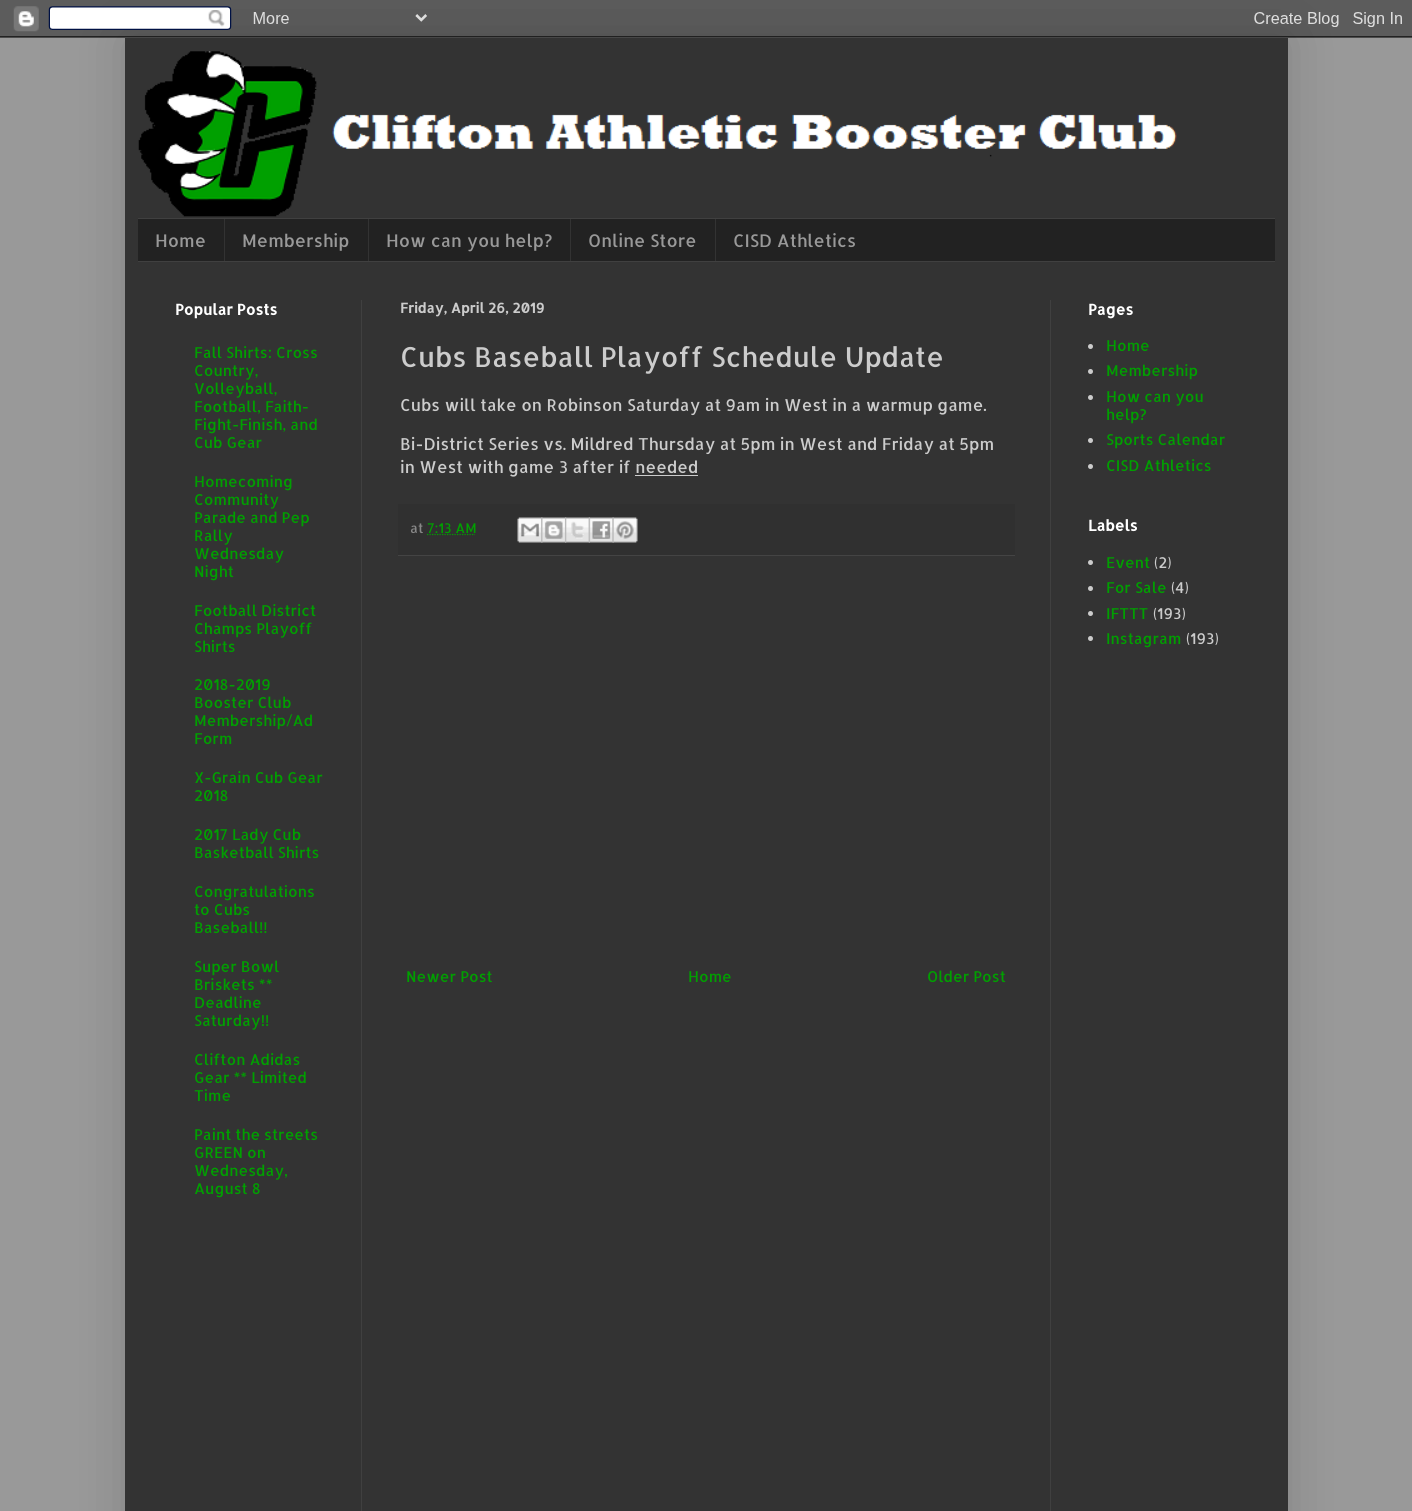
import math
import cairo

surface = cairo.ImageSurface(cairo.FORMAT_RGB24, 1412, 1511)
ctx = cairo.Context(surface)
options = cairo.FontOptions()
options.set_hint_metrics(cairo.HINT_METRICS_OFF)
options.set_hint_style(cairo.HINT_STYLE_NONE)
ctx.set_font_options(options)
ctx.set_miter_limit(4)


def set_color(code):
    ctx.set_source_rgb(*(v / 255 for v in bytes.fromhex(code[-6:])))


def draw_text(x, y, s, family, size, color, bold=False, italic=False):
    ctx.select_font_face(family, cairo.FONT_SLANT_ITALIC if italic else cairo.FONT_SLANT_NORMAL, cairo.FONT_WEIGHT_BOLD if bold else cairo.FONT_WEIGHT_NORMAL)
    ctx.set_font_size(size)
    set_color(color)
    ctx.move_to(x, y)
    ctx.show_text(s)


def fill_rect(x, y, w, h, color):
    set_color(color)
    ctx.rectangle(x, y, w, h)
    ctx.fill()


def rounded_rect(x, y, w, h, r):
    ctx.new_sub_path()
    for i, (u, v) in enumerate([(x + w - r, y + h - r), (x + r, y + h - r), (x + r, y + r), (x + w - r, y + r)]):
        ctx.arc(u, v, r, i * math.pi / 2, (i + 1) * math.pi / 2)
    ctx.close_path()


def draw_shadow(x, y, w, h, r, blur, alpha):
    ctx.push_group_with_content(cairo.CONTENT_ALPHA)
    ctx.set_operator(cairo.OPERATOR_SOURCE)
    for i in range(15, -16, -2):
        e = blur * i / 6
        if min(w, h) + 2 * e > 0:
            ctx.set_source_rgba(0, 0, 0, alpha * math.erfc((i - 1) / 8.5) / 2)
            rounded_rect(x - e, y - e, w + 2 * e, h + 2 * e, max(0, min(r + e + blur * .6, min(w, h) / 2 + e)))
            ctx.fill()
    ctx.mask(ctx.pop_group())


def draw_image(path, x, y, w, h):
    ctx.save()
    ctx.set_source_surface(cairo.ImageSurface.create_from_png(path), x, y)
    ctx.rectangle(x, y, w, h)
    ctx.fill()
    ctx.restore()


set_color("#999999")
ctx.paint()
set_color("#000000")
draw_shadow(125, 38, 1163, 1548, 0, 25, 0.15)
draw_image("assets/img1.png", 0, 0, 1412, 38)
fill_rect(125, 38, 1163, 1473, "#333333")
draw_image("assets/img2.png", 138, 51, 1039, 166)
fill_rect(138, 219, 1137, 42, "#222222")
fill_rect(138, 218, 1137, 1, "#404040")
fill_rect(138, 261, 1137, 1, "#404040")
draw_text(155, 247, "Home", "Allerta", 17.5, "#999999")
fill_rect(224, 219, 1, 42, "#333333")
draw_text(242, 247, "Membership", "Allerta", 17.5, "#999999")
fill_rect(368, 219, 1, 42, "#333333")
draw_text(386, 247, "How can you help?", "Allerta", 17.5, "#999999")
fill_rect(570, 219, 1, 42, "#333333")
draw_text(588, 247, "Online Store", "Allerta", 17.5, "#999999")
fill_rect(715, 219, 1, 42, "#333333")
draw_text(733, 247, "CISD Athletics", "Allerta", 17.5, "#999999")
fill_rect(361, 300, 1, 1211, "#404040")
fill_rect(1050, 300, 1, 1211, "#404040")
draw_text(175, 315, "Popular Posts", "Allerta", 15, "#ffffff", bold=True)
draw_text(194, 358, "Fall Shirts: Cross", "Allerta", 15, "#00a000")
draw_text(194, 376, "Country,", "Allerta", 15, "#00a000")
draw_text(194, 394, "Volleyball,", "Allerta", 15, "#00a000")
draw_text(194, 412, "Football, Faith-", "Allerta", 15, "#00a000")
draw_text(194, 430, "Fight-Finish, and", "Allerta", 15, "#00a000")
draw_text(194, 448, "Cub Gear", "Allerta", 15, "#00a000")
draw_text(194, 487, "Homecoming", "Allerta", 15, "#00a000")
draw_text(194, 505, "Community", "Allerta", 15, "#00a000")
draw_text(194, 523, "Parade and Pep", "Allerta", 15, "#00a000")
draw_text(194, 541, "Rally", "Allerta", 15, "#00a000")
draw_text(194, 559, "Wednesday", "Allerta", 15, "#00a000")
draw_text(194, 577, "Night", "Allerta", 15, "#00a000")
draw_text(194, 616, "Football District", "Allerta", 15, "#00a000")
draw_text(194, 634, "Champs Playoff", "Allerta", 15, "#00a000")
draw_text(194, 652, "Shirts", "Allerta", 15, "#00a000")
draw_text(194, 690, "2018-2019", "Allerta", 15, "#00a000")
draw_text(194, 708, "Booster Club", "Allerta", 15, "#00a000")
draw_text(194, 726, "Membership/Ad", "Allerta", 15, "#00a000")
draw_text(194, 744, "Form", "Allerta", 15, "#00a000")
draw_text(194, 783, "X-Grain Cub Gear", "Allerta", 15, "#00a000")
draw_text(194, 801, "2018", "Allerta", 15, "#00a000")
draw_text(194, 840, "2017 Lady Cub", "Allerta", 15, "#00a000")
draw_text(194, 858, "Basketball Shirts", "Allerta", 15, "#00a000")
draw_text(194, 897, "Congratulations", "Allerta", 15, "#00a000")
draw_text(194, 915, "to Cubs", "Allerta", 15, "#00a000")
draw_text(194, 933, "Baseball!!", "Allerta", 15, "#00a000")
draw_text(194, 972, "Super Bowl", "Allerta", 15, "#00a000")
draw_text(194, 990, "Briskets **", "Allerta", 15, "#00a000")
draw_text(194, 1008, "Deadline", "Allerta", 15, "#00a000")
draw_text(194, 1026, "Saturday!!", "Allerta", 15, "#00a000")
draw_text(194, 1065, "Clifton Adidas", "Allerta", 15, "#00a000")
draw_text(194, 1083, "Gear ** Limited", "Allerta", 15, "#00a000")
draw_text(194, 1101, "Time", "Allerta", 15, "#00a000")
draw_text(194, 1140, "Paint the streets", "Allerta", 15, "#00a000")
draw_text(194, 1158, "GREEN on", "Allerta", 15, "#00a000")
draw_text(194, 1176, "Wednesday,", "Allerta", 15, "#00a000")
draw_text(194, 1194, "August 8", "Allerta", 15, "#00a000")
draw_text(400, 313, "Friday, April 26, 2019", "Allerta", 13.75, "#cccccc", bold=True)
draw_text(400, 367, "Cubs Baseball Playoff Schedule Update", "Allerta", 27.5, "#cccccc")
draw_text(400, 411, "Cubs will take on Robinson Saturday at 9am in West in a warmup game.", "Allerta", 16.5, "#cccccc")
draw_text(400, 450, "Bi-District Series vs. Mildred Thursday at 5pm in West and Friday at 5pm", "Allerta", 16.5, "#cccccc")
draw_text(400, 473, "in West with game 3 after if needed", "Allerta", 16.5, "#cccccc")
fill_rect(635, 475, 63, 1, "#cccccc")
fill_rect(398, 504, 617, 51, "#303030")
fill_rect(398, 555, 617, 1, "#444444")
draw_text(410, 533, "at", "Allerta", 13.5, "#888888")
ctx.new_path()
ctx.move_to(427, 534.5)
ctx.line_to(475, 534.5)
set_color("#00a000")
ctx.set_line_width(1.2)
ctx.set_dash([1.25, 1.25])
ctx.stroke()
draw_text(427, 533, "7:13 AM", "Allerta", 13.5, "#00a000")
draw_image("assets/img3.png", 517, 517, 26, 26)
draw_image("assets/img4.png", 541, 517, 26, 26)
draw_image("assets/img5.png", 565, 517, 25, 26)
draw_image("assets/img6.png", 588, 517, 26, 26)
draw_image("assets/img7.png", 612, 517, 26, 26)
draw_text(406, 982, "Newer Post", "Allerta", 15, "#00a000")
draw_text(688, 982, "Home", "Allerta", 15, "#00a000")
draw_text(927, 982, "Older Post", "Allerta", 15, "#00a000")
draw_text(1088, 315, "Pages", "Allerta", 15, "#ffffff", bold=True)
set_color("#cccccc")
ctx.new_path()
ctx.arc(1090.5, 346.5, 2.5, 0, 2 * math.pi)
ctx.fill()
draw_text(1106, 351, "Home", "Allerta", 15, "#00a000")
set_color("#cccccc")
ctx.new_path()
ctx.arc(1090.5, 371.5, 2.5, 0, 2 * math.pi)
ctx.fill()
draw_text(1106, 376, "Membership", "Allerta", 15, "#00a000")
set_color("#cccccc")
ctx.new_path()
ctx.arc(1090.5, 397.5, 2.5, 0, 2 * math.pi)
ctx.fill()
draw_text(1106, 402, "How can you", "Allerta", 15, "#00a000")
draw_text(1106, 420, "help?", "Allerta", 15, "#00a000")
set_color("#cccccc")
ctx.new_path()
ctx.arc(1090.5, 440.5, 2.5, 0, 2 * math.pi)
ctx.fill()
draw_text(1106, 445, "Sports Calendar", "Allerta", 15, "#00a000")
set_color("#cccccc")
ctx.new_path()
ctx.arc(1090.5, 466.5, 2.5, 0, 2 * math.pi)
ctx.fill()
draw_text(1106, 471, "CISD Athletics", "Allerta", 15, "#00a000")
draw_text(1088, 531, "Labels", "Allerta", 15, "#ffffff", bold=True)
set_color("#cccccc")
ctx.new_path()
ctx.arc(1090.5, 562.5, 2.5, 0, 2 * math.pi)
ctx.fill()
draw_text(1106, 568, "Event", "Allerta", 15, "#00a000")
draw_text(1154, 568, "(2)", "Allerta", 15, "#cccccc")
ctx.new_path()
ctx.arc(1090.5, 588.5, 2.5, 0, 2 * math.pi)
ctx.fill()
draw_text(1106, 593, "For Sale", "Allerta", 15, "#00a000")
draw_text(1171, 593, "(4)", "Allerta", 15, "#cccccc")
ctx.new_path()
ctx.arc(1090.5, 613.5, 2.5, 0, 2 * math.pi)
ctx.fill()
draw_text(1106, 619, "IFTTT", "Allerta", 15, "#00a000")
draw_text(1153, 619, "(193)", "Allerta", 15, "#cccccc")
ctx.new_path()
ctx.arc(1090.5, 638.5, 2.5, 0, 2 * math.pi)
ctx.fill()
draw_text(1106, 644, "Instagram", "Allerta", 15, "#00a000")
draw_text(1186, 644, "(193)", "Allerta", 15, "#cccccc")
surface.write_to_png("output.png")
